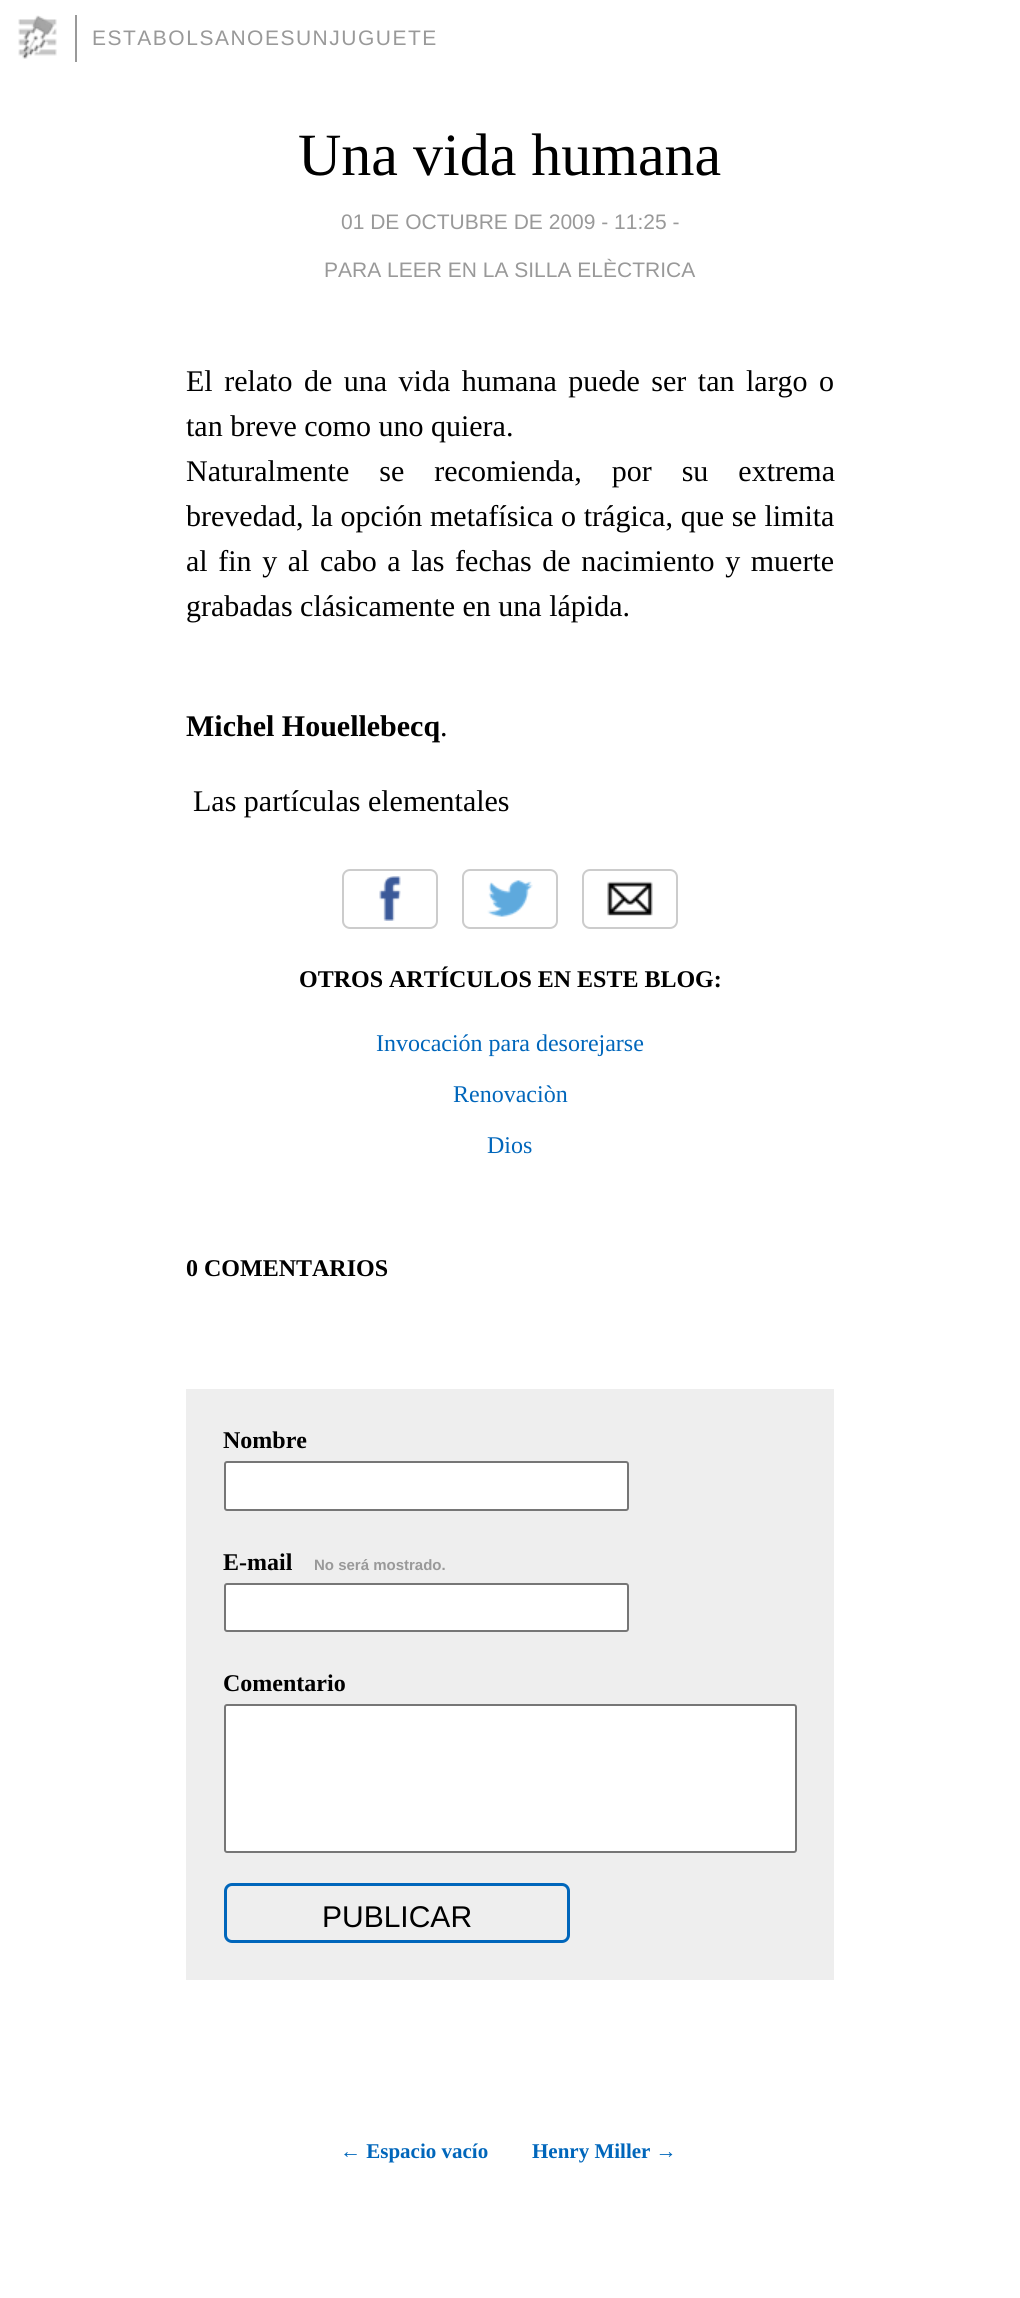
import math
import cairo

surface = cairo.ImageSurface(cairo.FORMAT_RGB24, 1020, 2298)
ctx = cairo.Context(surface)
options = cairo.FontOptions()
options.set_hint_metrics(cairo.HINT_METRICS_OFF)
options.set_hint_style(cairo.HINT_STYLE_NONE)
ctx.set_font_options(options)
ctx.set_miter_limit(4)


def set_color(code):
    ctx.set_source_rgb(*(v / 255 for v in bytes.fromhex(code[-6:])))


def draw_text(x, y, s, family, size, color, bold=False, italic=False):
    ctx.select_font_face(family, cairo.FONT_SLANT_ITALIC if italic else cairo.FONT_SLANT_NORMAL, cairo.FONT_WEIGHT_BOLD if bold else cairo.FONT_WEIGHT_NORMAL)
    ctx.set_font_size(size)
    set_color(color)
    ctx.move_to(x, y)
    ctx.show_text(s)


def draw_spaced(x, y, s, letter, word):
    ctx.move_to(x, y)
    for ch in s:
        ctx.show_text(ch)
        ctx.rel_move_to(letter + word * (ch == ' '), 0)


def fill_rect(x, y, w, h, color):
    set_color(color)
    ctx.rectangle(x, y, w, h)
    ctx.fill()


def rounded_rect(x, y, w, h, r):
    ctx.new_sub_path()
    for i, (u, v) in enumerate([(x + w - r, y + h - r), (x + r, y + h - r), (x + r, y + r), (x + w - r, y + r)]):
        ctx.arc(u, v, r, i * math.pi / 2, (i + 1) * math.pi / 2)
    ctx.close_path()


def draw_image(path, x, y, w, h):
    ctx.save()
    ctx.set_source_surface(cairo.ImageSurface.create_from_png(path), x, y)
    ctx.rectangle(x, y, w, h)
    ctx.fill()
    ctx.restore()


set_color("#ffffff")
ctx.paint()
draw_image("assets/img1.png", 18, 15, 39, 44)
fill_rect(75, 15, 2, 47, "#999999")
ctx.select_font_face("Liberation Sans")
ctx.set_font_size(21)
draw_spaced(92, 45, "ESTABOLSANOESUNJUGUETE", 1.5, 0)
draw_text(298, 175, "Una vida humana", "Liberation Serif", 60, "#000000")
draw_text(341, 229, "01 DE OCTUBRE DE 2009 - 11:25 -", "Liberation Sans", 21, "#999999")
draw_text(324, 277, "PARA LEER EN LA SILLA ELÈCTRICA", "Liberation Sans", 21, "#999999")
ctx.select_font_face("Liberation Serif")
ctx.set_font_size(30)
set_color("#000000")
draw_spaced(186, 391, "El relato de una vida humana puede ser tan largo o", 0, 4)
draw_text(186, 436, "tan breve como uno quiera.", "Liberation Serif", 30, "#000000")
draw_spaced(186, 481, "Naturalmente se recomienda, por su extrema", 0, 22.5)
draw_spaced(186, 526, "brevedad, la opción metafísica o trágica, que se limita", 0, 0.25)
draw_spaced(186, 571, "al fin y al cabo a las fechas de nacimiento y muerte", 0, 3.1)
draw_text(186, 616, "grabadas clásicamente en una lápida.", "Liberation Serif", 30, "#000000")
draw_text(186, 736, "Michel Houellebecq", "Liberation Serif", 30, "#000000", bold=True)
draw_text(440, 736, ".", "Liberation Serif", 30, "#000000")
draw_text(193, 811, "Las partículas elementales", "Liberation Serif", 30, "#000000")
draw_image("assets/img2.png", 379, 876, 22, 45)
rounded_rect(343, 870, 94, 58, 7)
set_color("#cccccc")
ctx.stroke()
draw_image("assets/img3.png", 487, 880, 46, 37)
rounded_rect(463, 870, 94, 58, 7)
ctx.stroke()
draw_image("assets/img4.png", 607, 881, 46, 35)
rounded_rect(583, 870, 94, 58, 7)
ctx.stroke()
draw_text(299, 987, "OTROS ARTÍCULOS EN ESTE BLOG:", "Liberation Serif", 24, "#000000", bold=True)
draw_text(376, 1051, "Invocación para desorejarse", "Liberation Serif", 24, "#0066bb")
draw_text(453, 1102, "Renovaciòn", "Liberation Serif", 24, "#0066bb")
draw_text(487, 1153, "Dios", "Liberation Serif", 24, "#0066bb")
draw_text(186, 1276, "0 COMENTARIOS", "Liberation Serif", 24, "#000000", bold=True)
fill_rect(186, 1389, 648, 591, "#eeeeee")
draw_text(223, 1448, "Nombre", "Liberation Serif", 24, "#000000", bold=True)
set_color("#ffffff")
rounded_rect(225, 1462, 403, 48, 2)
ctx.fill_preserve()
set_color("#767676")
ctx.stroke()
draw_text(223, 1570, "E-mail", "Liberation Serif", 24, "#000000", bold=True)
draw_text(314, 1570, "No será mostrado.", "Liberation Sans", 15, "#999999", bold=True)
set_color("#ffffff")
rounded_rect(225, 1584, 403, 47, 2)
ctx.fill_preserve()
set_color("#767676")
ctx.stroke()
draw_text(223, 1691, "Comentario", "Liberation Serif", 24, "#000000", bold=True)
set_color("#ffffff")
rounded_rect(225, 1705, 571, 147, 2)
ctx.fill_preserve()
set_color("#767676")
ctx.stroke()
rounded_rect(225.5, 1884.5, 343, 57, 6.5)
set_color("#0066bb")
ctx.set_line_width(3)
ctx.stroke()
draw_text(322, 1927, "PUBLICAR", "Liberation Sans", 30, "#000000")
draw_text(340, 2158, "← Espacio vacío", "Liberation Serif", 21, "#0066bb", bold=True)
draw_text(532, 2158, "Henry Miller →", "Liberation Serif", 21, "#0066bb", bold=True)
surface.write_to_png("output.png")
